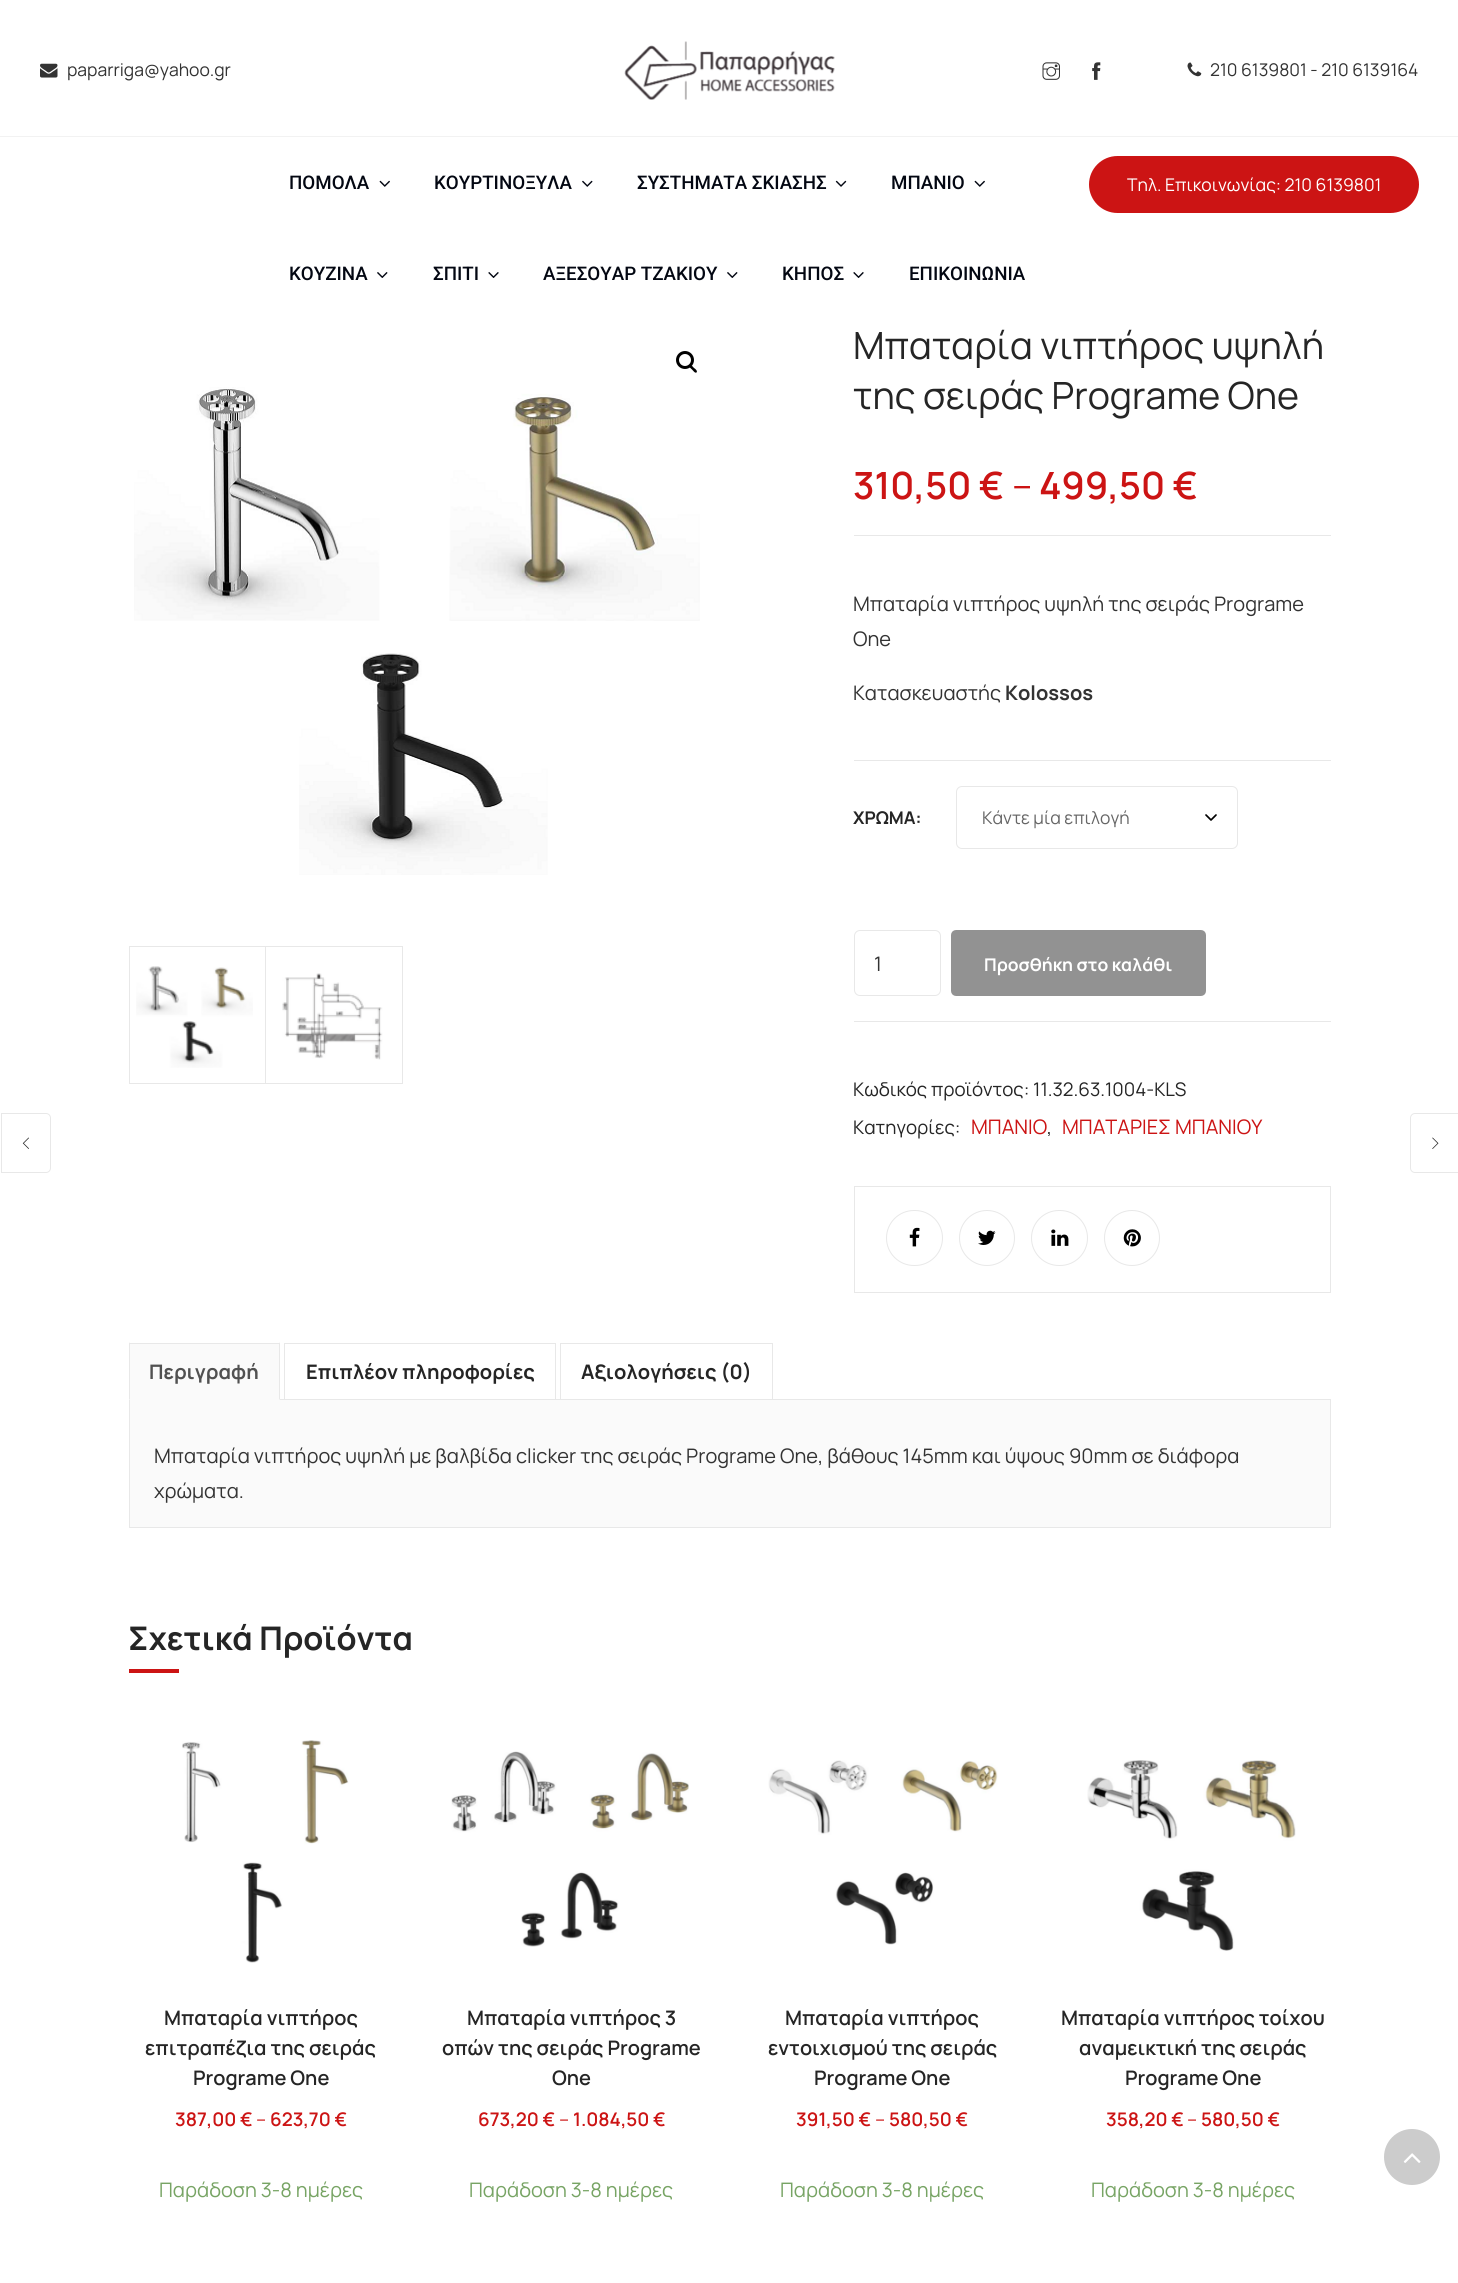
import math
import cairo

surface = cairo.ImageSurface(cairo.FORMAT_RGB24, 1458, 2283)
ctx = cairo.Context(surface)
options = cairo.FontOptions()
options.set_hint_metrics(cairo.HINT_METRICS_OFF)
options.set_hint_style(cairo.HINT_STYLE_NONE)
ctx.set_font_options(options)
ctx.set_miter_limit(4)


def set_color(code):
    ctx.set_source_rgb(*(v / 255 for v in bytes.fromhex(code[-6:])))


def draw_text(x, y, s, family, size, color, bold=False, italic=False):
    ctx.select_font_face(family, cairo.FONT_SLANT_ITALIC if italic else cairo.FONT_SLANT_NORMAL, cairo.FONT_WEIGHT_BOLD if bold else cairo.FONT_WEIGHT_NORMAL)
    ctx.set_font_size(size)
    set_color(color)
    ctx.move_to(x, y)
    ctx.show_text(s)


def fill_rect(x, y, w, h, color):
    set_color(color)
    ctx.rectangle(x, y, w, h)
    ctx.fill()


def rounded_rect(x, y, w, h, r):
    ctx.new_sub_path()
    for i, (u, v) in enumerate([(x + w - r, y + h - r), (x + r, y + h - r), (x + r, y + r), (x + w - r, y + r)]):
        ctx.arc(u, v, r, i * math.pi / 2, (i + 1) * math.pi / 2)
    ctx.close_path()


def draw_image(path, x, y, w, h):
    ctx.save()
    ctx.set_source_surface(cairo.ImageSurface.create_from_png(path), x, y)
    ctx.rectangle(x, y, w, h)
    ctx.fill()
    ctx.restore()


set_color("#ffffff")
ctx.paint()
fill_rect(0, 136, 1458, 1, "#f2f2f2")
draw_image("assets/img1.png", 40, 63, 18, 15)
draw_text(67, 76, "paparriga@yahoo.gr", "Manrope", 17.5, "#333333")
draw_image("assets/img2.png", 624, 41, 211, 59)
draw_image("assets/img3.png", 1042, 62, 18, 18)
draw_image("assets/img4.png", 1092, 62, 9, 18)
draw_image("assets/img5.png", 1187, 62, 15, 15)
draw_text(1210, 76, "210 6139801 - 210 6139164", "Manrope", 17.5, "#333333")
draw_text(289, 189, "ΠΟΜΟΛΑ", "Roboto Medium", 18.75, "#030712")
draw_image("assets/img6.png", 379, 180, 11, 7)
draw_text(434, 189, "ΚΟΥΡΤΙΝΟΞΥΛΑ", "Roboto Medium", 18.75, "#030712")
draw_image("assets/img7.png", 582, 180, 11, 7)
draw_text(637, 189, "ΣΥΣΤΗΜΑΤΑ ΣΚΙΑΣΗΣ", "Roboto Medium", 18.75, "#030712")
draw_image("assets/img8.png", 835, 180, 12, 7)
draw_text(891, 189, "ΜΠΑΝΙΟ", "Roboto Medium", 18.75, "#030712")
draw_image("assets/img6.png", 974, 180, 11, 7)
draw_text(289, 280, "ΚΟΥΖΙΝΑ", "Roboto Medium", 18.75, "#030712")
draw_image("assets/img9.png", 377, 272, 11, 6)
draw_text(433, 280, "ΣΠΙΤΙ", "Roboto Medium", 18.75, "#030712")
draw_image("assets/img10.png", 488, 272, 11, 6)
draw_text(543, 280, "ΑΞΕΣΟΥΑΡ ΤΖΑΚΙΟΥ", "Roboto Medium", 18.75, "#030712")
draw_image("assets/img9.png", 727, 272, 11, 6)
draw_text(782, 280, "ΚΗΠΟΣ", "Roboto Medium", 18.75, "#030712")
draw_image("assets/img10.png", 853, 272, 11, 6)
draw_text(909, 280, "ΕΠΙΚΟΙΝΩΝΙΑ", "Roboto Medium", 18.75, "#030712")
set_color("#cc1414")
rounded_rect(1090.5, 157.5, 327, 54, 27)
ctx.fill_preserve()
ctx.set_line_width(3)
ctx.stroke()
draw_text(1127, 191, "Τηλ. Επικοινωνίας: 210 6139801", "Manrope", 17.5, "#ffffff")
ctx.new_path()
ctx.arc(685, 360, 7.5, 0, 2 * math.pi)
set_color("#000000")
ctx.stroke()
ctx.new_path()
ctx.move_to(689.5, 365)
ctx.curve_to(691, 364, 693, 367, 694, 368)
ctx.curve_to(695, 368.5, 698, 371, 696.5, 372.5)
ctx.curve_to(695, 373.5, 693, 370.5, 692, 369.5)
ctx.curve_to(691.5, 369, 688, 366.5, 689.5, 365)
ctx.close_path()
ctx.fill()
draw_image("assets/img11.png", 134, 387, 566, 488)
ctx.rectangle(129.5, 946.5, 136, 137)
set_color("#e8e8e8")
ctx.set_line_width(1)
ctx.stroke()
draw_image("assets/img12.png", 136, 966, 117, 102)
ctx.rectangle(265.5, 946.5, 137, 137)
ctx.stroke()
draw_image("assets/img13.png", 282, 973, 101, 87)
draw_text(853, 359, "Μπαταρία νιπτήρος υψηλή", "Manrope", 37.5, "#252525")
draw_text(853, 409, "της σειράς Programe One", "Manrope", 37.5, "#252525")
draw_text(853, 499, "310,50 €", "Manrope SemiBold", 37.5, "#cc1414")
draw_text(1012, 499, "–", "Manrope", 37.5, "#cc1414")
draw_text(1039, 499, "499,50 €", "Manrope SemiBold", 37.5, "#cc1414")
fill_rect(854, 535, 477, 1, "#e8e8e8")
draw_text(853, 611, "Μπαταρία νιπτήρος υψηλή της σειράς Programe", "Manrope", 20, "#333333")
draw_text(853, 646, "One", "Manrope", 20, "#333333")
draw_text(853, 700, "Κατασκευαστής", "Manrope", 20, "#333333")
draw_text(1005, 700, "Kolossos", "Manrope", 20, "#333333", bold=True)
fill_rect(854, 760, 477, 1, "#e8e8e8")
fill_rect(854, 1021, 477, 1, "#e8e8e8")
draw_text(853, 824, "ΧΡΩΜΑ:", "Manrope", 17.5, "#252525", bold=True)
ctx.new_path()
ctx.move_to(1206, 815)
ctx.line_to(1211, 820)
ctx.line_to(1216, 815)
set_color("#000000")
ctx.set_line_width(1.7)
ctx.set_line_cap(cairo.LINE_CAP_ROUND)
ctx.set_line_join(cairo.LINE_JOIN_ROUND)
ctx.stroke()
rounded_rect(956.5, 786.5, 281, 62, 5.5)
set_color("#e8e8e8")
ctx.set_line_width(1)
ctx.set_line_cap(cairo.LINE_CAP_BUTT)
ctx.set_line_join(cairo.LINE_JOIN_MITER)
ctx.stroke()
draw_text(982, 824, "Κάντε μία επιλογή", "Manrope", 17.5, "#666666")
rounded_rect(854.5, 930.5, 86, 65, 5.5)
set_color("#e8e8e8")
ctx.stroke()
draw_text(874, 971, "1", "Manrope", 20, "#333333")
set_color("#929292")
rounded_rect(952.5, 931.5, 252, 63, 3.5)
ctx.fill_preserve()
ctx.set_line_width(3)
ctx.stroke()
draw_text(984, 971, "Προσθήκη στο καλάθι", "Manrope", 17.5, "#ffffff", bold=True)
draw_text(853, 1096, "Κωδικός προϊόντος: 11.32.63.1004-KLS", "Manrope", 18.75, "#252525")
draw_text(853, 1134, "Κατηγορίες:", "Manrope", 18.75, "#252525")
draw_text(971, 1134, "ΜΠΑΝΙΟ", "Manrope", 20, "#cc1414")
draw_text(1047, 1134, ",", "Manrope", 18.75, "#252525")
draw_text(1062, 1134, "ΜΠΑΤΑΡΙΕΣ ΜΠΑΝΙΟΥ", "Manrope", 20, "#cc1414")
ctx.rectangle(854.5, 1186.5, 476, 106)
set_color("#e8e8e8")
ctx.set_line_width(1)
ctx.stroke()
rounded_rect(886.5, 1210.5, 56, 55, 27.5)
ctx.stroke()
draw_image("assets/img14.png", 909, 1227, 11, 20)
ctx.arc(987, 1238, 27.5, 0, 2 * math.pi)
ctx.stroke()
draw_image("assets/img15.png", 978, 1230, 18, 15)
rounded_rect(1031.5, 1210.5, 56, 55, 27.5)
ctx.stroke()
draw_image("assets/img16.png", 1051, 1229, 18, 17)
ctx.arc(1132, 1238, 27.5, 0, 2 * math.pi)
ctx.stroke()
draw_image("assets/img17.png", 1123, 1229, 18, 18)
set_color("#fafafa")
ctx.rectangle(129.5, 1399.5, 1201, 128)
ctx.fill_preserve()
set_color("#e8e8e8")
ctx.stroke()
fill_rect(129, 1344, 151, 56, "#fafafa")
fill_rect(129, 1343, 151, 1, "#e8e8e8")
ctx.new_path()
ctx.move_to(280, 1342)
ctx.line_to(280, 1400)
ctx.line_to(279, 1399)
ctx.line_to(279, 1344)
ctx.close_path()
ctx.fill()
ctx.new_path()
ctx.move_to(129, 1400)
ctx.line_to(129, 1342)
ctx.line_to(130, 1344)
ctx.line_to(130, 1399)
ctx.close_path()
ctx.fill()
draw_text(149, 1379, "Περιγραφή", "Manrope", 20, "#515151", bold=True)
ctx.rectangle(284.5, 1343.5, 271, 56)
set_color("#e8e8e8")
ctx.stroke()
draw_text(306, 1379, "Επιπλέον πληροφορίες", "Manrope", 20, "#252525", bold=True)
ctx.rectangle(560.5, 1343.5, 212, 56)
set_color("#e8e8e8")
ctx.stroke()
draw_text(581, 1379, "Αξιολογήσεις (0)", "Manrope", 20, "#252525", bold=True)
draw_text(154, 1463, "Μπαταρία νιπτήρος υψηλή με βαλβίδα clicker της σειράς Programe One, βάθους 145mm και ύψους 90mm σε διάφορα", "Manrope", 20, "#333333")
draw_text(154, 1498, "χρώματα.", "Manrope", 20, "#333333")
draw_text(128, 1650, "Σχετικά Προϊόντα", "Manrope", 32.5, "#252525", bold=True)
fill_rect(129, 1669, 50, 4, "#cc1414")
draw_image("assets/img18.png", 182, 1740, 167, 223)
draw_text(164, 2025, "Μπαταρία νιπτήρος", "Manrope SemiBold", 20, "#252525")
draw_text(145, 2055, "επιτραπέζια της σειράς", "Manrope SemiBold", 20, "#252525")
draw_text(193, 2085, "Programe One", "Manrope SemiBold", 20, "#252525")
draw_text(175, 2126, "387,00 €", "Manrope SemiBold", 18.75, "#cc1414")
draw_text(256, 2126, "–", "Manrope", 18.75, "#cc1414")
draw_text(270, 2126, "623,70 €", "Manrope SemiBold", 18.75, "#cc1414")
draw_text(159, 2197, "Παράδοση 3-8 ημέρες", "Manrope", 20, "#77a464")
draw_image("assets/img19.png", 451, 1751, 238, 196)
draw_text(467, 2025, "Μπαταρία νιπτήρος 3", "Manrope SemiBold", 20, "#252525")
draw_text(442, 2055, "οπών της σειράς Programe", "Manrope SemiBold", 20, "#252525")
draw_text(552, 2085, "One", "Manrope SemiBold", 20, "#252525")
draw_text(478, 2126, "673,20 €", "Manrope SemiBold", 18.75, "#cc1414")
draw_text(559, 2126, "–", "Manrope", 18.75, "#cc1414")
draw_text(573, 2126, "1.084,50 €", "Manrope SemiBold", 18.75, "#cc1414")
draw_text(469, 2197, "Παράδοση 3-8 ημέρες", "Manrope", 20, "#77a464")
draw_image("assets/img20.png", 768, 1760, 230, 185)
draw_text(785, 2025, "Μπαταρία νιπτήρος", "Manrope SemiBold", 20, "#252525")
draw_text(768, 2055, "εντοιχισμού της σειράς", "Manrope SemiBold", 20, "#252525")
draw_text(814, 2085, "Programe One", "Manrope SemiBold", 20, "#252525")
draw_text(796, 2126, "391,50 €", "Manrope SemiBold", 18.75, "#cc1414")
draw_text(875, 2126, "–", "Manrope", 18.75, "#cc1414")
draw_text(889, 2126, "580,50 €", "Manrope SemiBold", 18.75, "#cc1414")
draw_text(780, 2197, "Παράδοση 3-8 ημέρες", "Manrope", 20, "#77a464")
draw_image("assets/img21.png", 1087, 1760, 209, 191)
draw_text(1061, 2025, "Μπαταρία νιπτήρος τοίχου", "Manrope SemiBold", 20, "#252525")
draw_text(1079, 2055, "αναμεικτική της σειράς", "Manrope SemiBold", 20, "#252525")
draw_text(1125, 2085, "Programe One", "Manrope SemiBold", 20, "#252525")
draw_text(1106, 2126, "358,20 €", "Manrope SemiBold", 18.75, "#cc1414")
draw_text(1187, 2126, "–", "Manrope", 18.75, "#cc1414")
draw_text(1201, 2126, "580,50 €", "Manrope SemiBold", 18.75, "#cc1414")
draw_text(1091, 2197, "Παράδοση 3-8 ημέρες", "Manrope", 20, "#77a464")
ctx.new_path()
ctx.move_to(1.5, 1113.5)
ctx.line_to(46, 1113.5)
ctx.curve_to(48.5, 1113.5, 50.5, 1115.5, 50.5, 1118)
ctx.line_to(50.5, 1168)
ctx.curve_to(50.5, 1170.5, 48.5, 1172.5, 46, 1172.5)
ctx.line_to(1.5, 1172.5)
ctx.close_path()
set_color("#e8e8e8")
ctx.stroke()
draw_image("assets/img22.png", 22, 1137, 7, 12)
ctx.new_path()
ctx.move_to(1415, 1113.5)
ctx.line_to(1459.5, 1113.5)
ctx.line_to(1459.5, 1172.5)
ctx.line_to(1415, 1172.5)
ctx.curve_to(1412.5, 1172.5, 1410.5, 1170.5, 1410.5, 1168)
ctx.line_to(1410.5, 1118)
ctx.curve_to(1410.5, 1115.5, 1412.5, 1113.5, 1415, 1113.5)
ctx.close_path()
ctx.stroke()
draw_image("assets/img23.png", 1432, 1137, 7, 12)
set_color("#cccccc")
ctx.arc(1412, 2157, 28, 0, 2 * math.pi)
ctx.fill()
draw_image("assets/img24.png", 1403, 2153, 18, 10)
surface.write_to_png("output.png")
